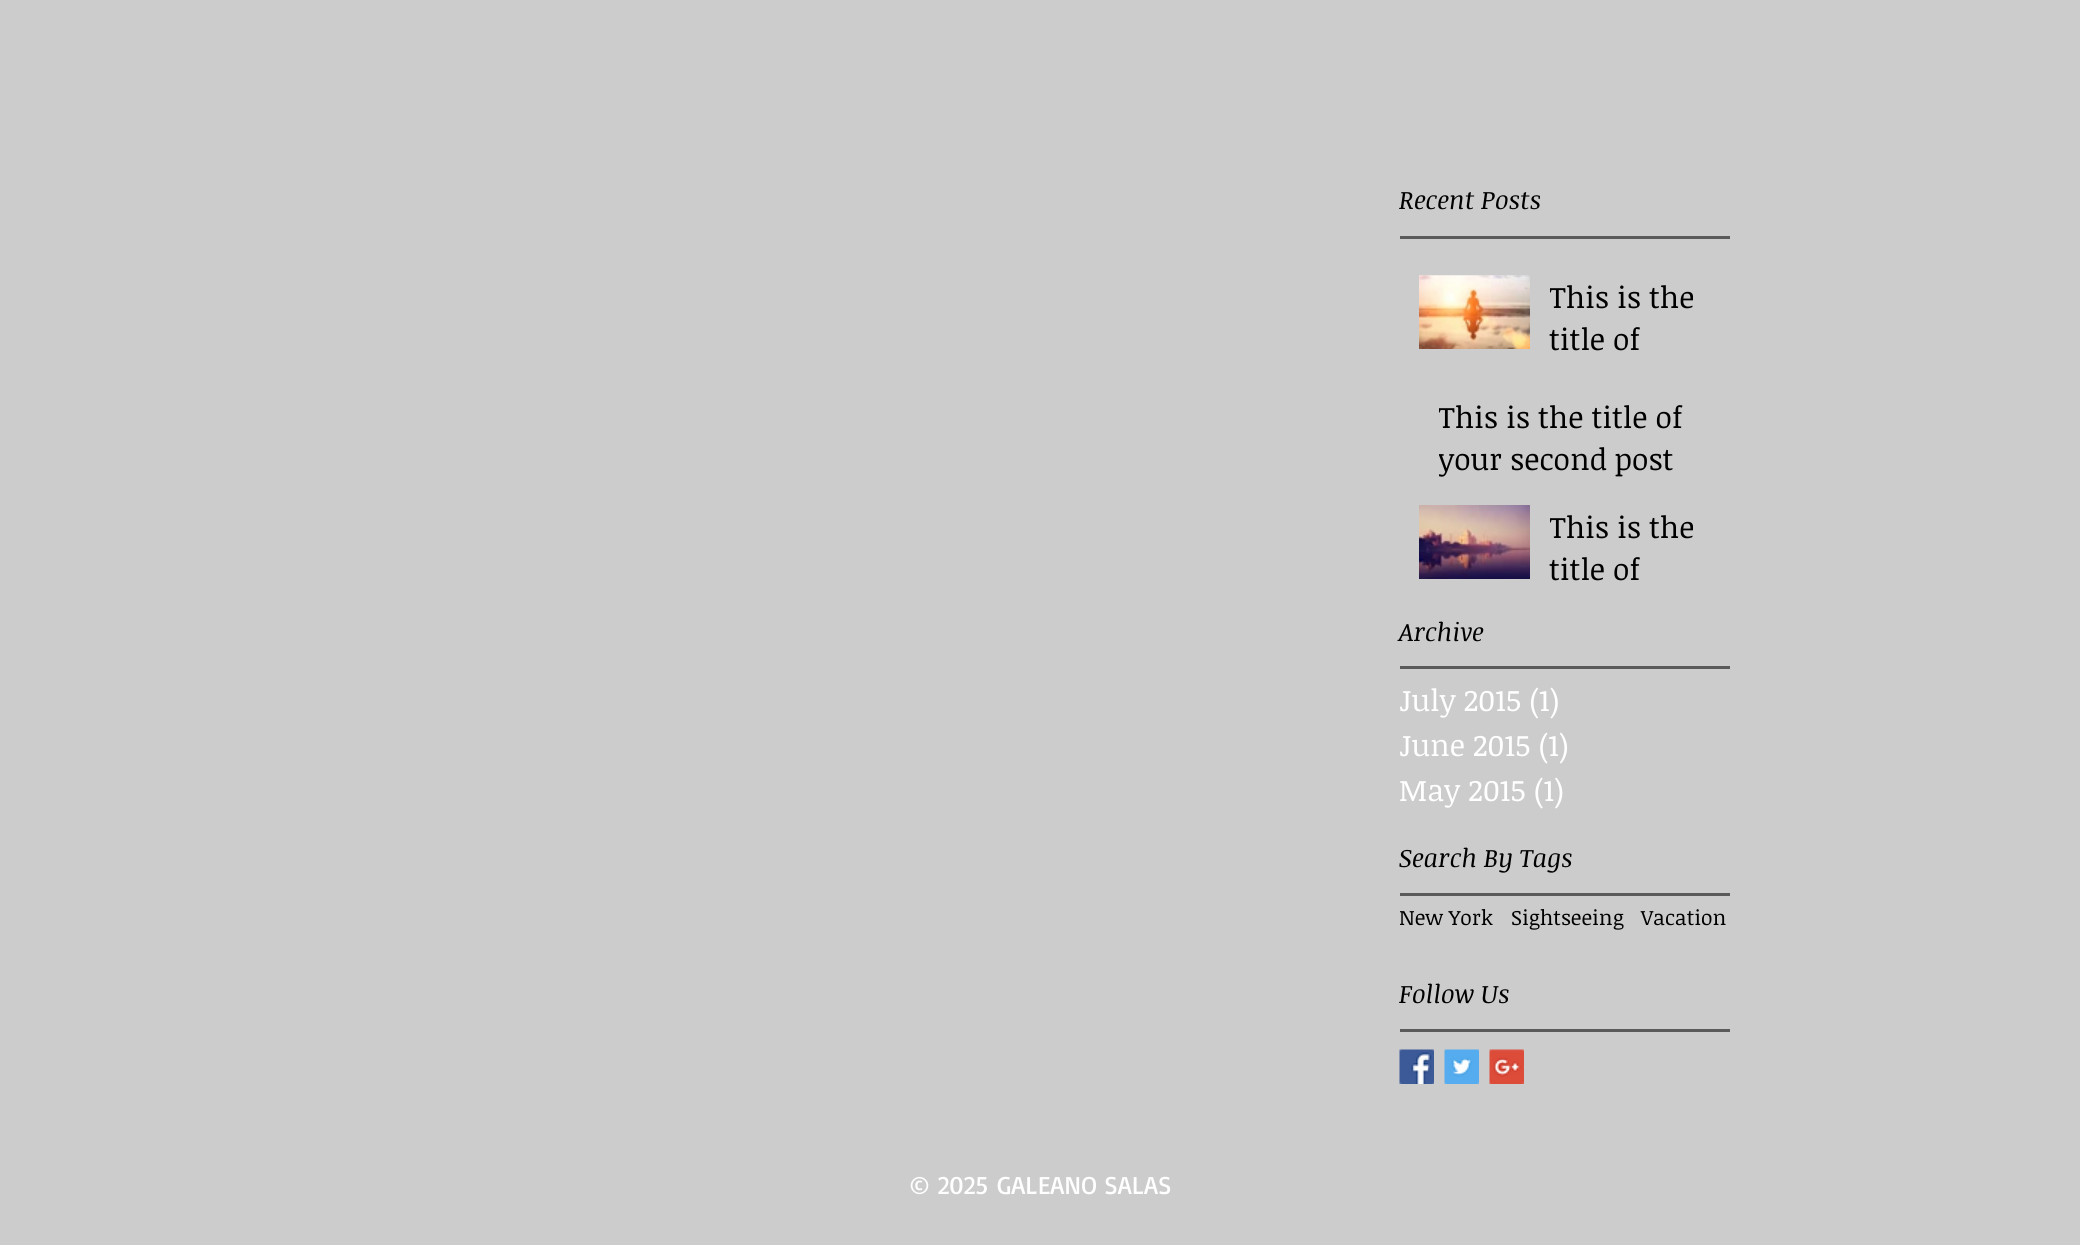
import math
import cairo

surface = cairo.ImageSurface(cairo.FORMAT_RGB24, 2080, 1245)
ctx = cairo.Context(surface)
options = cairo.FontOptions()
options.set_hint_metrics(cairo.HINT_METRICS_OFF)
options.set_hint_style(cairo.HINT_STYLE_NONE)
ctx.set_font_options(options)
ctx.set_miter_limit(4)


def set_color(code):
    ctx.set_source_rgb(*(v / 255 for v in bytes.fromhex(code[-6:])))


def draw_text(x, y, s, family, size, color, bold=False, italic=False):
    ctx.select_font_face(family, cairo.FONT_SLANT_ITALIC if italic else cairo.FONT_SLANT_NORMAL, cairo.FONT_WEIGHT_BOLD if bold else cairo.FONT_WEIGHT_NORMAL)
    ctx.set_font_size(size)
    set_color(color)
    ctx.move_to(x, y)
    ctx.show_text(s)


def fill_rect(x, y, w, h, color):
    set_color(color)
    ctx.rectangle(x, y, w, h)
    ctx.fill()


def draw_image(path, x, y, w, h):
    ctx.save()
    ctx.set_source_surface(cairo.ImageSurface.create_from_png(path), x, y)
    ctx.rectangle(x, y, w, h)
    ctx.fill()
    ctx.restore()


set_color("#cccccc")
ctx.paint()
draw_text(1399, 209, "Recent Posts", "Noticia Text", 25.5, "#000000", italic=True)
fill_rect(1400, 236, 330, 3, "#5a5a5a")
draw_image("assets/img1.png", 1419, 275, 111, 1)
draw_image("assets/img2.png", 1419, 275, 111, 74)
ctx.save()
ctx.rectangle(1550, 275, 162, 94)
ctx.clip()
draw_text(1549, 308, "This is the", "Noticia Text", 30, "#000000")
ctx.restore()
draw_text(1549, 350, "title of", "Noticia Text", 30, "#000000")
ctx.save()
ctx.rectangle(1439, 395, 273, 84)
ctx.clip()
draw_text(1438, 428, "This is the title of", "Noticia Text", 30, "#000000")
draw_text(1438, 470, "your second post", "Noticia Text", 30, "#000000")
ctx.restore()
draw_image("assets/img3.png", 1419, 505, 111, 74)
ctx.save()
ctx.rectangle(1550, 504, 162, 95)
ctx.clip()
draw_text(1549, 538, "This is the", "Noticia Text", 30, "#000000")
ctx.restore()
draw_text(1549, 580, "title of", "Noticia Text", 30, "#000000")
draw_text(1399, 641, "Archive", "Noticia Text", 25.5, "#000000", italic=True)
fill_rect(1400, 666, 330, 3, "#5a5a5a")
draw_text(1399, 711, "July 2015 (1)", "Noticia Text", 30, "#ffffff")
draw_text(1399, 756, "June 2015 (1)", "Noticia Text", 30, "#ffffff")
draw_text(1399, 801, "May 2015 (1)", "Noticia Text", 30, "#ffffff")
draw_text(1399, 867, "Search By Tags", "Noticia Text", 25.5, "#000000", italic=True)
fill_rect(1400, 893, 330, 3, "#5a5a5a")
ctx.save()
ctx.rectangle(1400, 903, 93, 30)
ctx.clip()
draw_text(1399, 925, "New York", "Noticia Text", 21, "#000000")
ctx.restore()
draw_text(1511, 925, "Sightseeing", "Noticia Text", 21, "#000000")
draw_text(1641, 925, "Vacation", "Noticia Text", 21, "#000000")
draw_text(1399, 1003, "Follow Us", "Noticia Text", 25.5, "#000000", italic=True)
fill_rect(1400, 1029, 330, 3, "#5a5a5a")
draw_image("assets/img4.png", 1399, 1049, 35, 35)
draw_image("assets/img5.png", 1444, 1049, 35, 35)
draw_image("assets/img6.png", 1489, 1049, 35, 35)
draw_text(909, 1194, "© 2025", "Basic", 25.5, "#ffffff")
draw_text(997, 1194, "GALEANO SALAS", "Basic", 25.5, "#ffffff")
surface.write_to_png("output.png")
